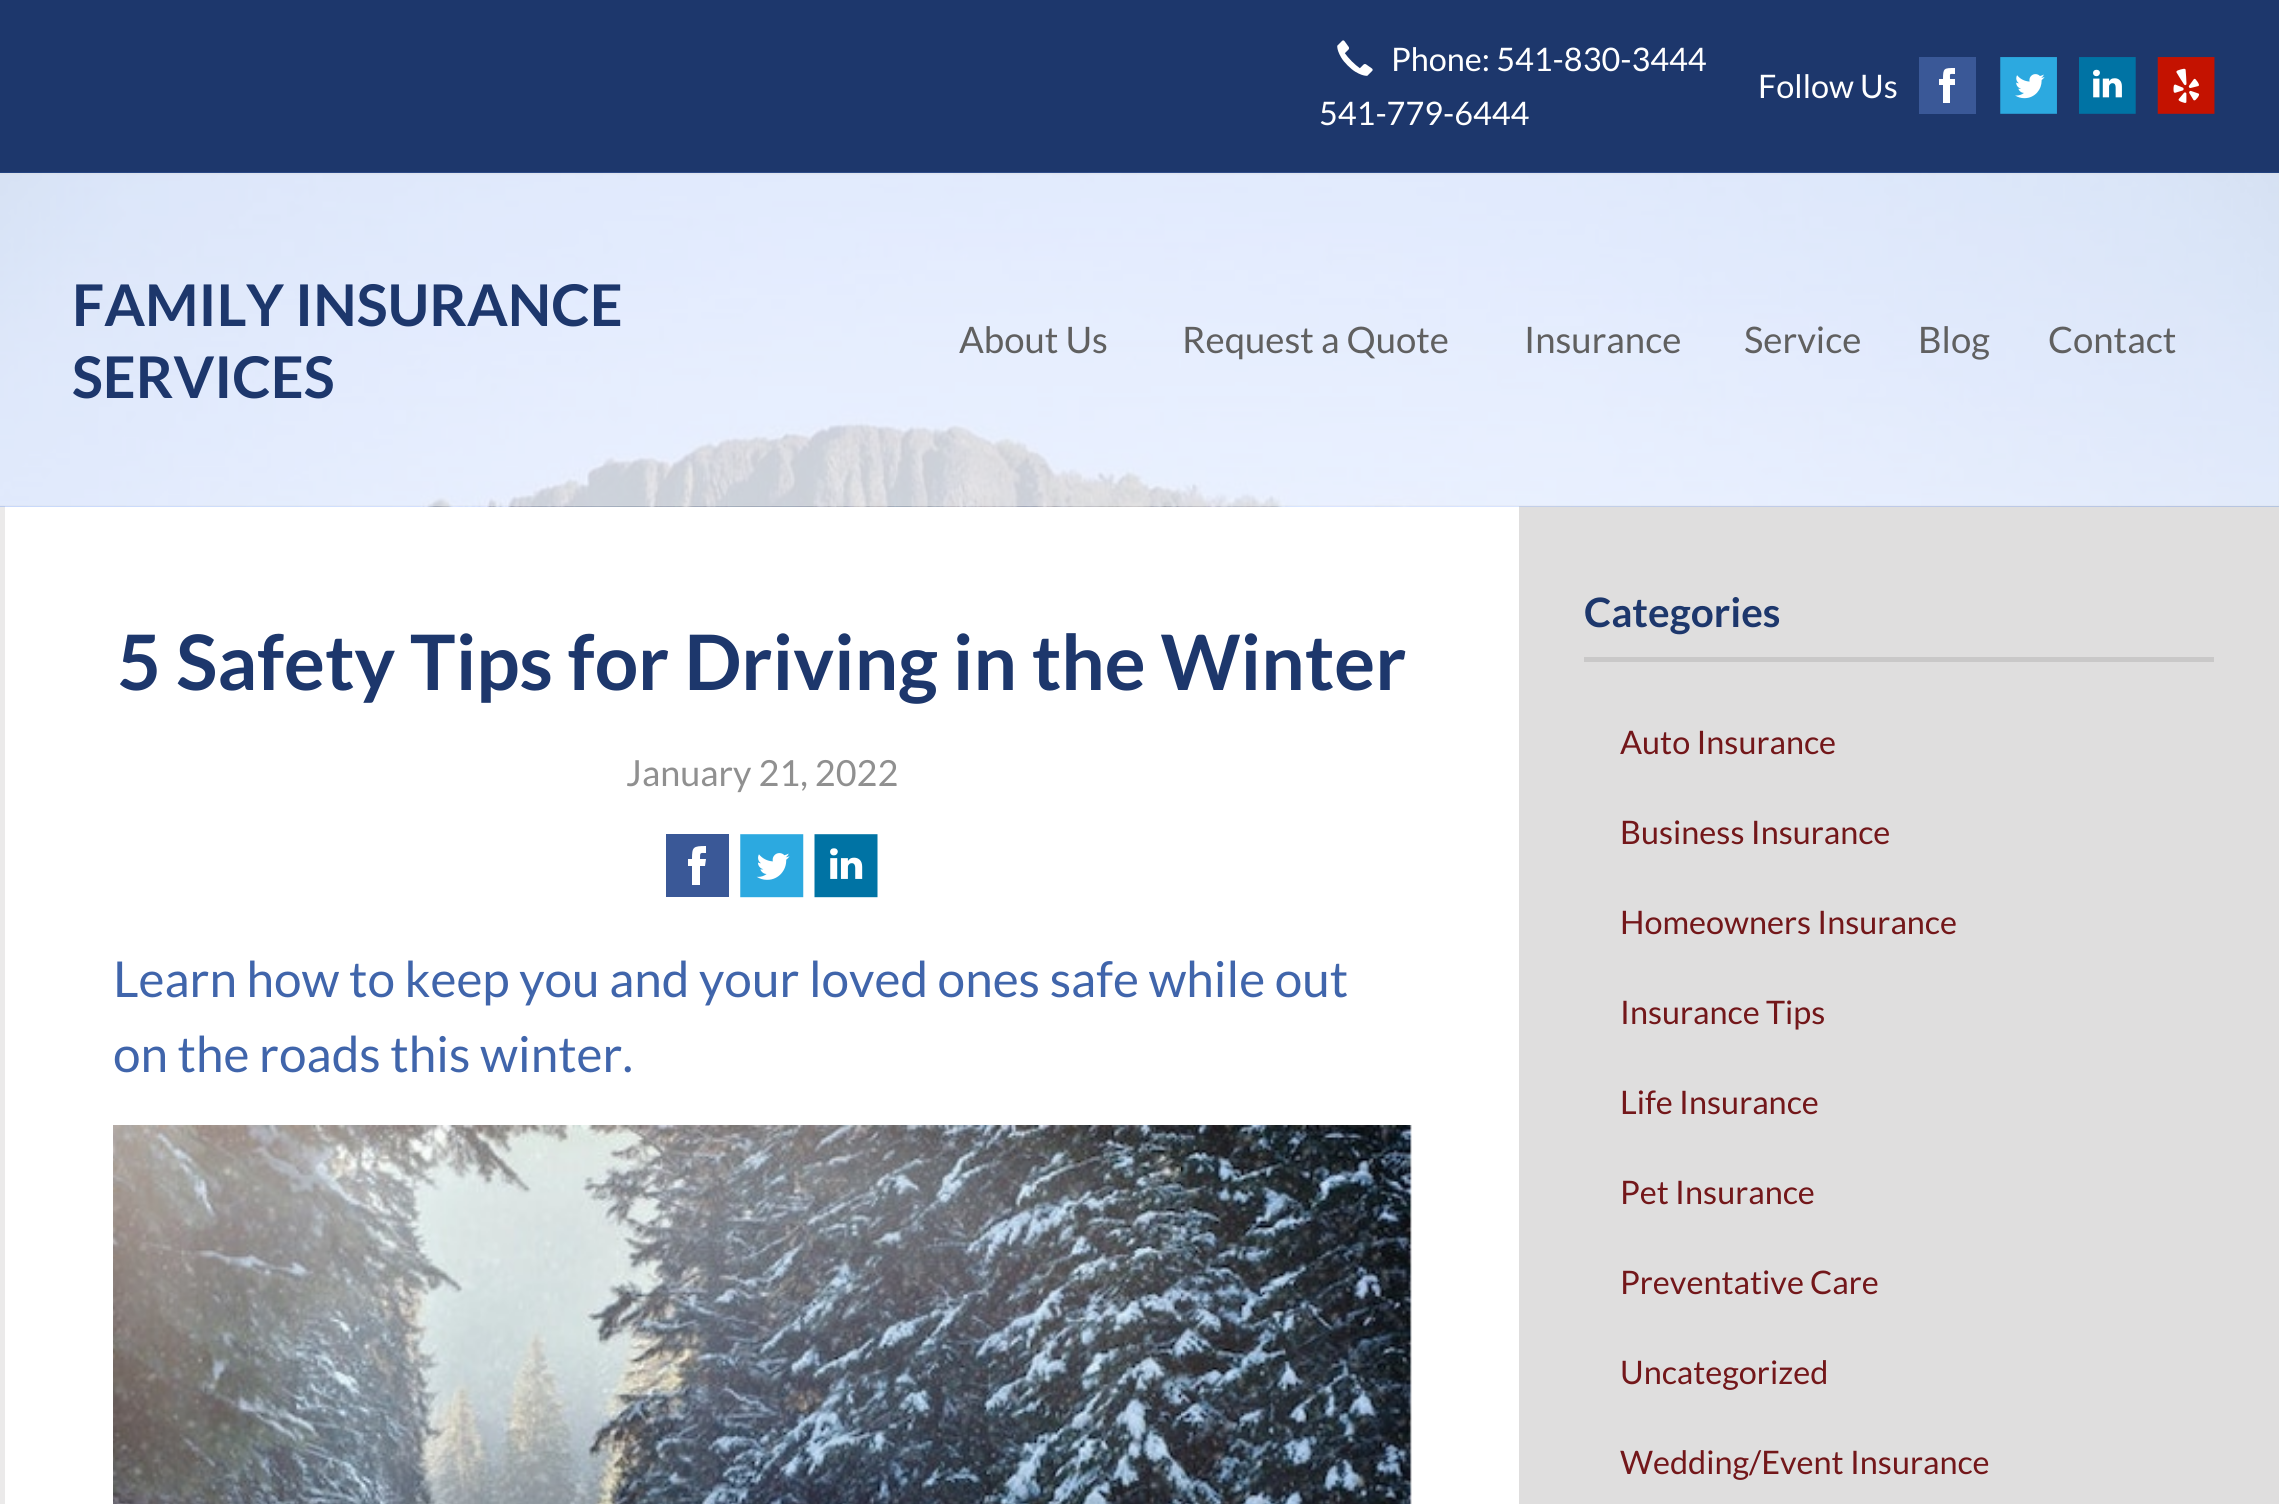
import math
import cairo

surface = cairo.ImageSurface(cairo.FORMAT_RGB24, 2279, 1504)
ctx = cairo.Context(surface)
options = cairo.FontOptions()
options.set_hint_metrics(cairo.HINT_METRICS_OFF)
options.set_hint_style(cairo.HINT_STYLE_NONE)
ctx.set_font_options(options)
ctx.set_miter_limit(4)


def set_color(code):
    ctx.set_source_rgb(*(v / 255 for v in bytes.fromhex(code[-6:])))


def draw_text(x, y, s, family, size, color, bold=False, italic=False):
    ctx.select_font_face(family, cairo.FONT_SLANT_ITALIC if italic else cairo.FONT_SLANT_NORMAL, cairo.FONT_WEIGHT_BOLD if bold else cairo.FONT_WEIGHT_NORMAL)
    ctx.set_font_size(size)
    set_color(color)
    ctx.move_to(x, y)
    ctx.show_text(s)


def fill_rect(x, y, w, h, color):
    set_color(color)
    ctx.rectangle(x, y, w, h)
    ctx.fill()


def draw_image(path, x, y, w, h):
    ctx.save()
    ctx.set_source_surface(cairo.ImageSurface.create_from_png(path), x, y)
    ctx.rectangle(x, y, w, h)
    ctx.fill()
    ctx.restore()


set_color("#1d376c")
ctx.paint()
draw_image("assets/img1.png", 1337, 40, 36, 36)
draw_text(1391, 71, "Phone: 541-830-3444", "Lato", 32.4, "#ffffff")
draw_text(1319, 125, "541-779-6444", "Lato", 32.4, "#ffffff")
draw_text(1758, 98, "Follow Us", "Lato", 32.4, "#ffffff")
fill_rect(1939, 68, 16, 35, "#ffffff")
set_color("#3a5897")
ctx.new_path()
ctx.move_to(1919, 114)
ctx.line_to(1976, 114)
ctx.line_to(1976, 57)
ctx.line_to(1919, 57)
ctx.close_path()
ctx.move_to(1939, 79)
ctx.line_to(1943, 79)
ctx.curve_to(1943, 68, 1944, 68, 1955, 68)
ctx.line_to(1955, 74)
ctx.curve_to(1949, 74, 1950, 73, 1950, 79)
ctx.line_to(1955, 79)
ctx.line_to(1955, 85)
ctx.line_to(1950, 85)
ctx.line_to(1950, 103)
ctx.line_to(1943, 103)
ctx.line_to(1943, 85)
ctx.line_to(1939, 85)
ctx.close_path()
ctx.fill()
fill_rect(2015, 74, 30, 25, "#ffffff")
draw_image("assets/img2.png", 2000, 57, 57, 57)
fill_rect(2093, 69, 29, 29, "#ffffff")
draw_image("assets/img3.png", 2079, 57, 57, 57)
fill_rect(2173, 68, 27, 35, "#ffffff")
draw_image("assets/img4.png", 2157, 57, 58, 57)
fill_rect(0, 173, 2279, 333, "#404040")
fill_rect(5, 506, 1514, 998, "#ffffff")
fill_rect(0, 506, 5, 998, "#ebeaea")
fill_rect(1519, 506, 760, 998, "#dfdede")
draw_image("assets/img5.png", 0, 172, 2279, 335)
ctx.set_source_rgba(1, 1, 1, 0.8)
ctx.rectangle(0, 173, 2279, 333)
ctx.fill()
draw_text(72, 326, "FAMILY INSURANCE", "Lato", 57.5, "#1d376c", bold=True)
draw_text(72, 398, "SERVICES", "Lato", 57.5, "#1d376c", bold=True)
draw_text(959, 353, "About Us", "Lato", 36.5, "#606060")
draw_text(1182, 353, "Request a Quote", "Lato", 36.5, "#606060")
draw_text(1524, 353, "Insurance", "Lato", 36.5, "#606060")
draw_text(1744, 353, "Service", "Lato", 36.5, "#606060")
draw_text(1918, 353, "Blog", "Lato", 36.5, "#606060")
draw_text(2048, 353, "Contact", "Lato", 36.5, "#606060")
draw_text(117, 690, "5 Safety Tips for Driving in the Winter", "Lato", 76.5, "#1d376c", bold=True)
draw_text(626, 786, "January 21, 2022", "Lato", 36, "#909090")
set_color("#3a5897")
ctx.new_path()
ctx.move_to(666, 897)
ctx.line_to(729, 897)
ctx.line_to(729, 834)
ctx.line_to(666, 834)
ctx.close_path()
ctx.move_to(688, 859)
ctx.line_to(692, 859)
ctx.curve_to(692, 847, 693, 846, 706, 846)
ctx.line_to(706, 853)
ctx.curve_to(700, 853, 700, 852, 700, 859)
ctx.line_to(706, 859)
ctx.line_to(705, 866)
ctx.line_to(700, 866)
ctx.line_to(700, 885)
ctx.line_to(692, 885)
ctx.line_to(692, 866)
ctx.line_to(688, 866)
ctx.close_path()
ctx.fill()
draw_image("assets/img6.png", 740, 834, 64, 64)
draw_image("assets/img7.png", 814, 834, 64, 64)
draw_text(113, 997, "Learn how to keep you and your loved ones safe while out", "Lato", 49.5, "#4065ab")
draw_text(113, 1072, "on the roads this winter.", "Lato", 49.5, "#4065ab")
draw_image("assets/img8.png", 113, 1125, 1299, 379)
fill_rect(1584, 657, 630, 5, "#c9c8c8")
draw_text(1584, 627, "Categories", "Lato", 40.5, "#1d376c", bold=True)
draw_text(1620, 754, "Auto Insurance", "Lato", 32.4, "#73171a")
draw_text(1620, 844, "Business Insurance", "Lato", 32.4, "#73171a")
draw_text(1620, 934, "Homeowners Insurance", "Lato", 32.4, "#73171a")
draw_text(1620, 1024, "Insurance Tips", "Lato", 32.4, "#73171a")
draw_text(1620, 1114, "Life Insurance", "Lato", 32.4, "#73171a")
draw_text(1620, 1204, "Pet Insurance", "Lato", 32.4, "#73171a")
draw_text(1620, 1294, "Preventative Care", "Lato", 32.4, "#73171a")
draw_text(1620, 1384, "Uncategorized", "Lato", 32.4, "#73171a")
draw_text(1620, 1474, "Wedding/Event Insurance", "Lato", 32.4, "#73171a")
surface.write_to_png("output.png")
